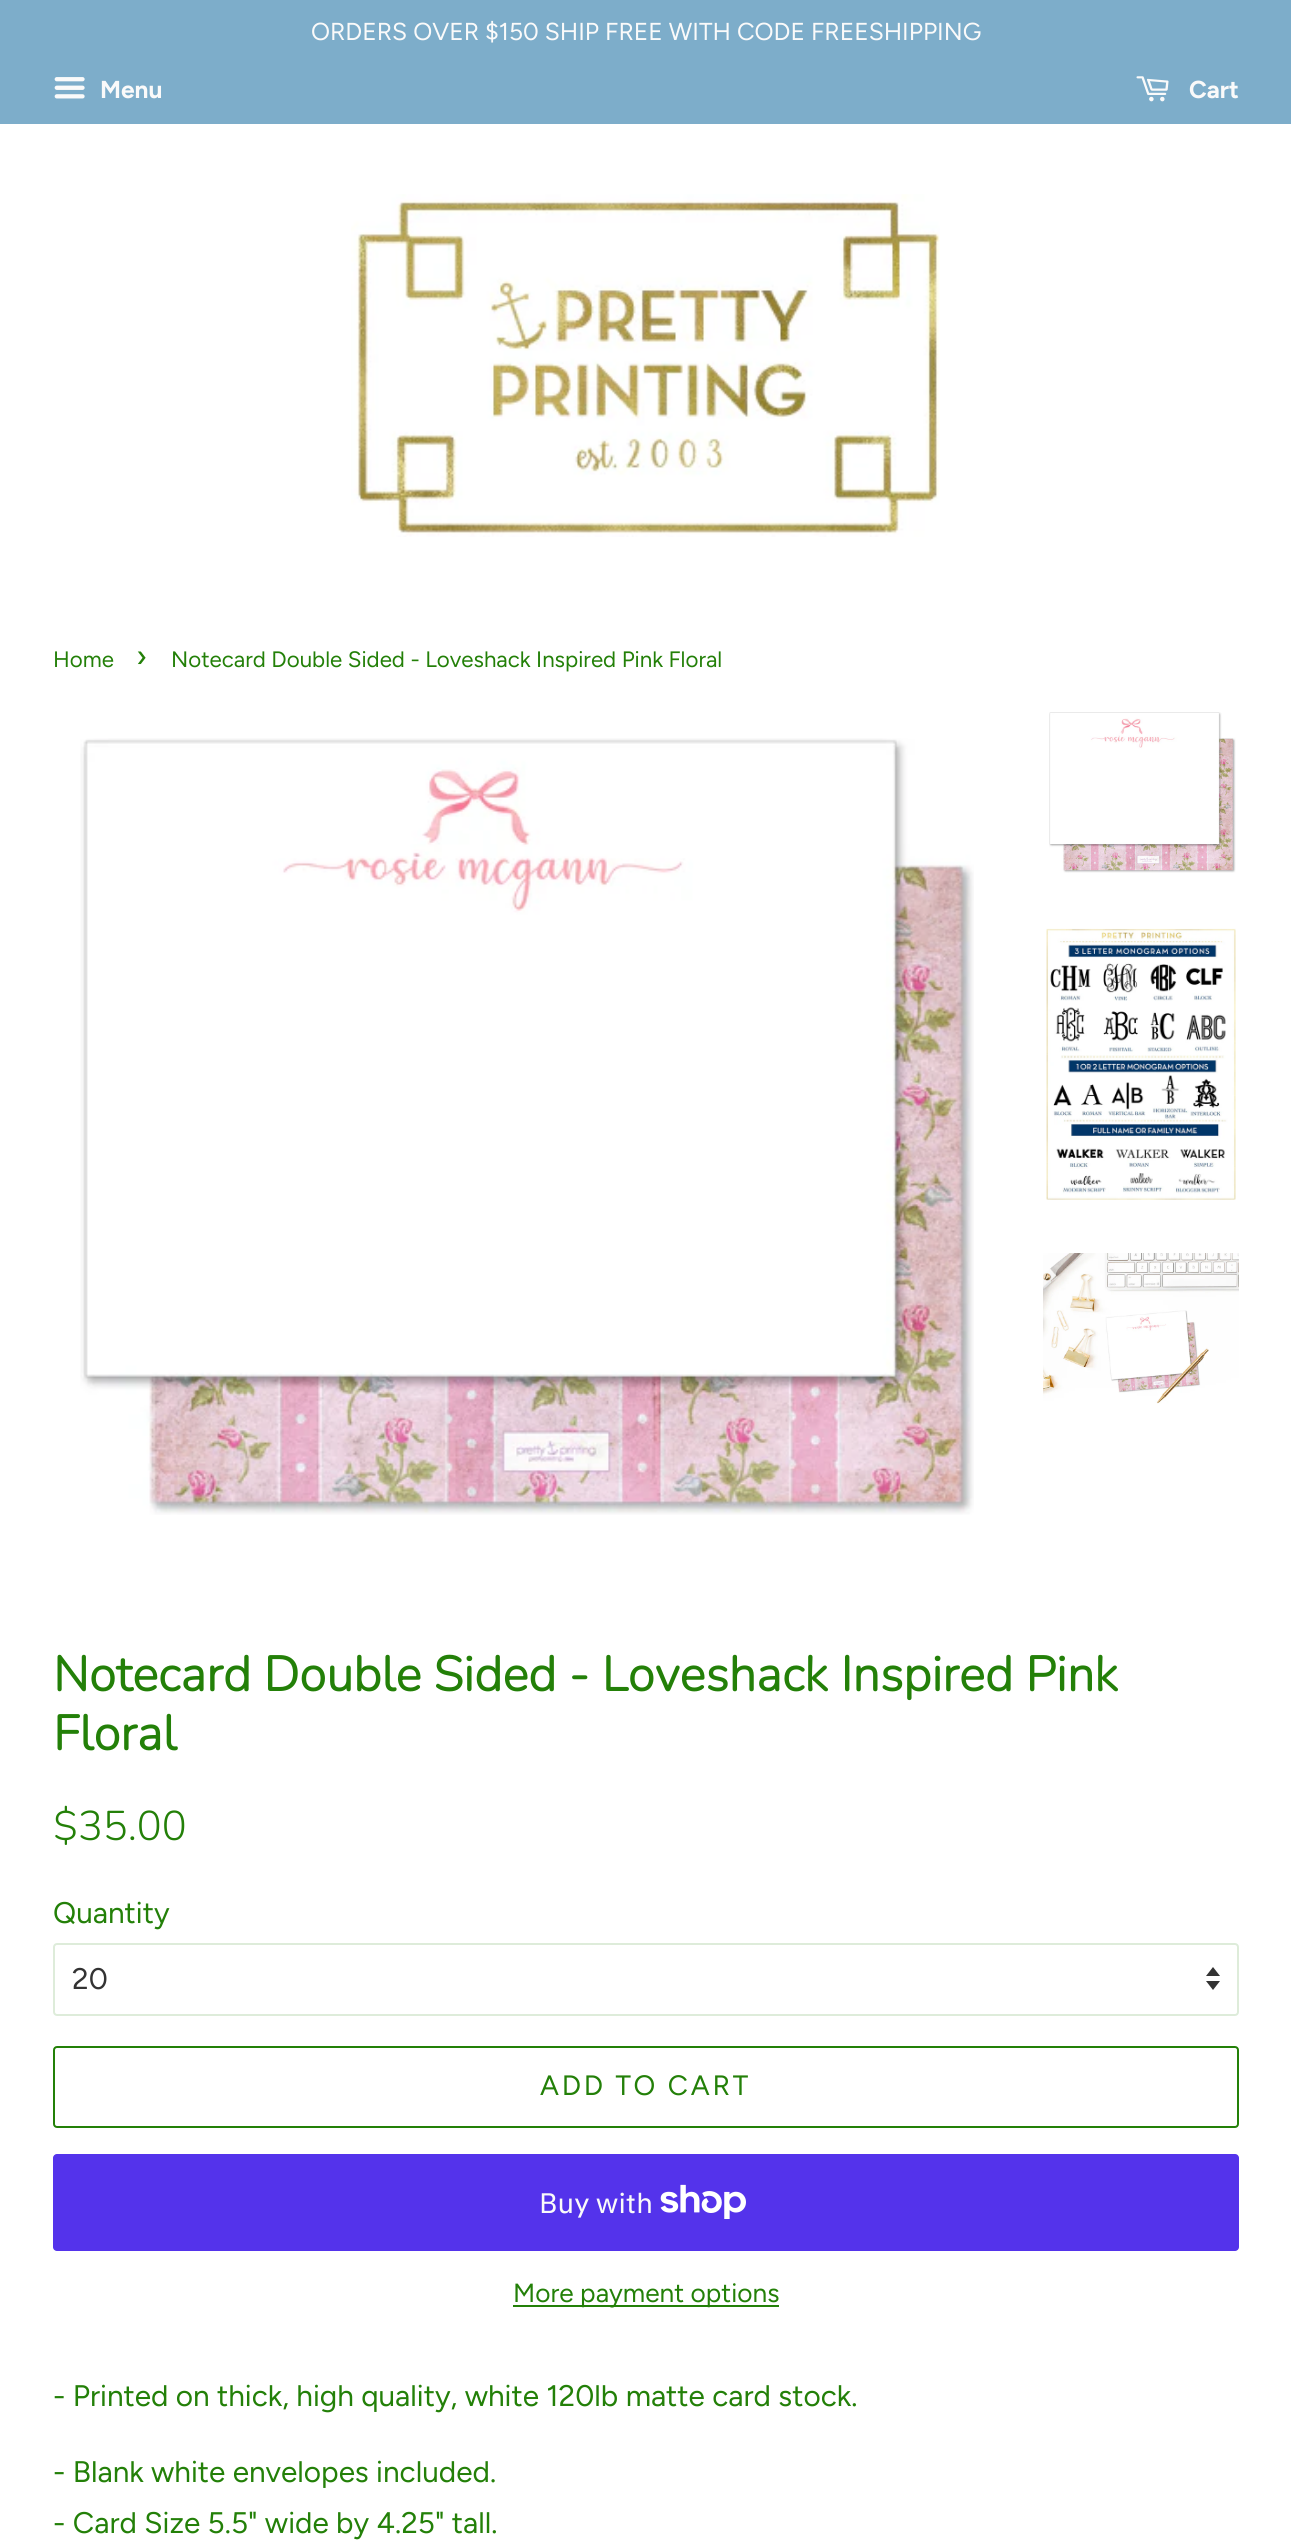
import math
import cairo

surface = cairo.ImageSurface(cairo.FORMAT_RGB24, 1291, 2543)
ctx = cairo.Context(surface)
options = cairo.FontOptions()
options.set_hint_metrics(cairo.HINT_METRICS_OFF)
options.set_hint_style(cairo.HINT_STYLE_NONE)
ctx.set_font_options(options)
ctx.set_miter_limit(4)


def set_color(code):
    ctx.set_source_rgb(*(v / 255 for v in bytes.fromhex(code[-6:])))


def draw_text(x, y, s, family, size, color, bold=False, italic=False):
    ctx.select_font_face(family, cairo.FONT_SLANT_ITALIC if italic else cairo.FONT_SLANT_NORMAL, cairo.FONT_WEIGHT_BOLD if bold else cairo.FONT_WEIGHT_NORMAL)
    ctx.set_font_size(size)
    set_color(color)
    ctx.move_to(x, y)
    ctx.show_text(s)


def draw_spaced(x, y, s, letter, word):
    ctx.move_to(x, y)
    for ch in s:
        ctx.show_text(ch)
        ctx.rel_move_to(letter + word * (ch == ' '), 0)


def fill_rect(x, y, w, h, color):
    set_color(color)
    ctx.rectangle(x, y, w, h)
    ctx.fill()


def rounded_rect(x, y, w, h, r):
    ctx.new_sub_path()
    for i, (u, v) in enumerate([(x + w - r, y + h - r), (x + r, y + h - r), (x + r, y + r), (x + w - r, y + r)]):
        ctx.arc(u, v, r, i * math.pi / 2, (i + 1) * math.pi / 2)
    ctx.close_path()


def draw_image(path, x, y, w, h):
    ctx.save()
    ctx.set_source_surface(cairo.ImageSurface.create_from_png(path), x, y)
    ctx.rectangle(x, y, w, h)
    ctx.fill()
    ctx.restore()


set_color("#ffffff")
ctx.paint()
fill_rect(0, 0, 1291, 124, "#7dadca")
draw_text(311, 40, "ORDERS OVER $150 SHIP FREE WITH CODE FREESHIPPING", "Figtree", 24.5, "#fafafa")
draw_image("assets/img1.png", 54, 77, 31, 22)
draw_text(100, 98, "Menu", "Figtree", 24.5, "#fafafa", bold=True)
draw_image("assets/img2.png", 1136, 76, 33, 26)
draw_text(1189, 98, "Cart", "Figtree", 24.5, "#fafafa", bold=True)
draw_image("assets/img3.png", 351, 194, 589, 343)
draw_text(53, 667, "Home", "Figtree", 22.3, "#238008")
draw_text(136, 667, "›", "Figtree", 31, "#238008")
draw_text(171, 667, "Notecard Double Sided - Loveshack Inspired Pink Floral", "Figtree", 22.3, "#238008")
draw_image("assets/img4.png", 80, 738, 894, 777)
draw_image("assets/img5.png", 1049, 712, 187, 161)
draw_image("assets/img6.png", 1046, 928, 190, 272)
draw_image("assets/img7.png", 1043, 1253, 196, 151)
draw_text(53, 1691, "Notecard Double Sided - Loveshack Inspired Pink", "Nunito", 49, "#238008", bold=True)
draw_text(53, 1750, "Floral", "Nunito", 49, "#238008", bold=True)
draw_text(53, 1840, "$35.00", "Nunito Light", 41.5, "#238008")
draw_text(53, 1923, "Quantity", "Figtree", 29.75, "#238008")
set_color("#333333")
ctx.new_path()
ctx.move_to(1206, 1981)
ctx.line_to(1213, 1990)
ctx.line_to(1220, 1981)
ctx.close_path()
ctx.move_to(1213, 1967)
ctx.line_to(1206, 1976)
ctx.line_to(1220, 1976)
ctx.close_path()
ctx.fill()
rounded_rect(54, 1944, 1184, 71, 3)
set_color("#deecda")
ctx.stroke()
draw_text(72, 1989, "20", "Figtree", 29.75, "#333333")
rounded_rect(54, 2047, 1184, 80, 3)
set_color("#238008")
ctx.stroke()
ctx.set_font_size(28)
draw_spaced(540, 2095, "ADD TO CART", 2.75, 0)
set_color("#5433eb")
rounded_rect(53, 2154, 1186, 97, 4)
ctx.fill()
draw_text(539, 2213, "Buy with", "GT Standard", 28, "#fafafa")
draw_image("assets/img8.png", 660, 2184, 86, 35)
fill_rect(513, 2305, 266, 2, "#238008")
draw_text(513, 2302, "More payment options", "Figtree", 26.25, "#238008")
draw_text(53, 2406, "- Printed on thick, high quality, white 120lb matte card stock.", "Figtree", 29.75, "#238008")
draw_text(53, 2482, "- Blank white envelopes included.", "Figtree", 29.75, "#238008")
draw_text(53, 2533, "- Card Size 5.5\" wide by 4.25\" tall.", "Figtree", 29.75, "#238008")
surface.write_to_png("output.png")
